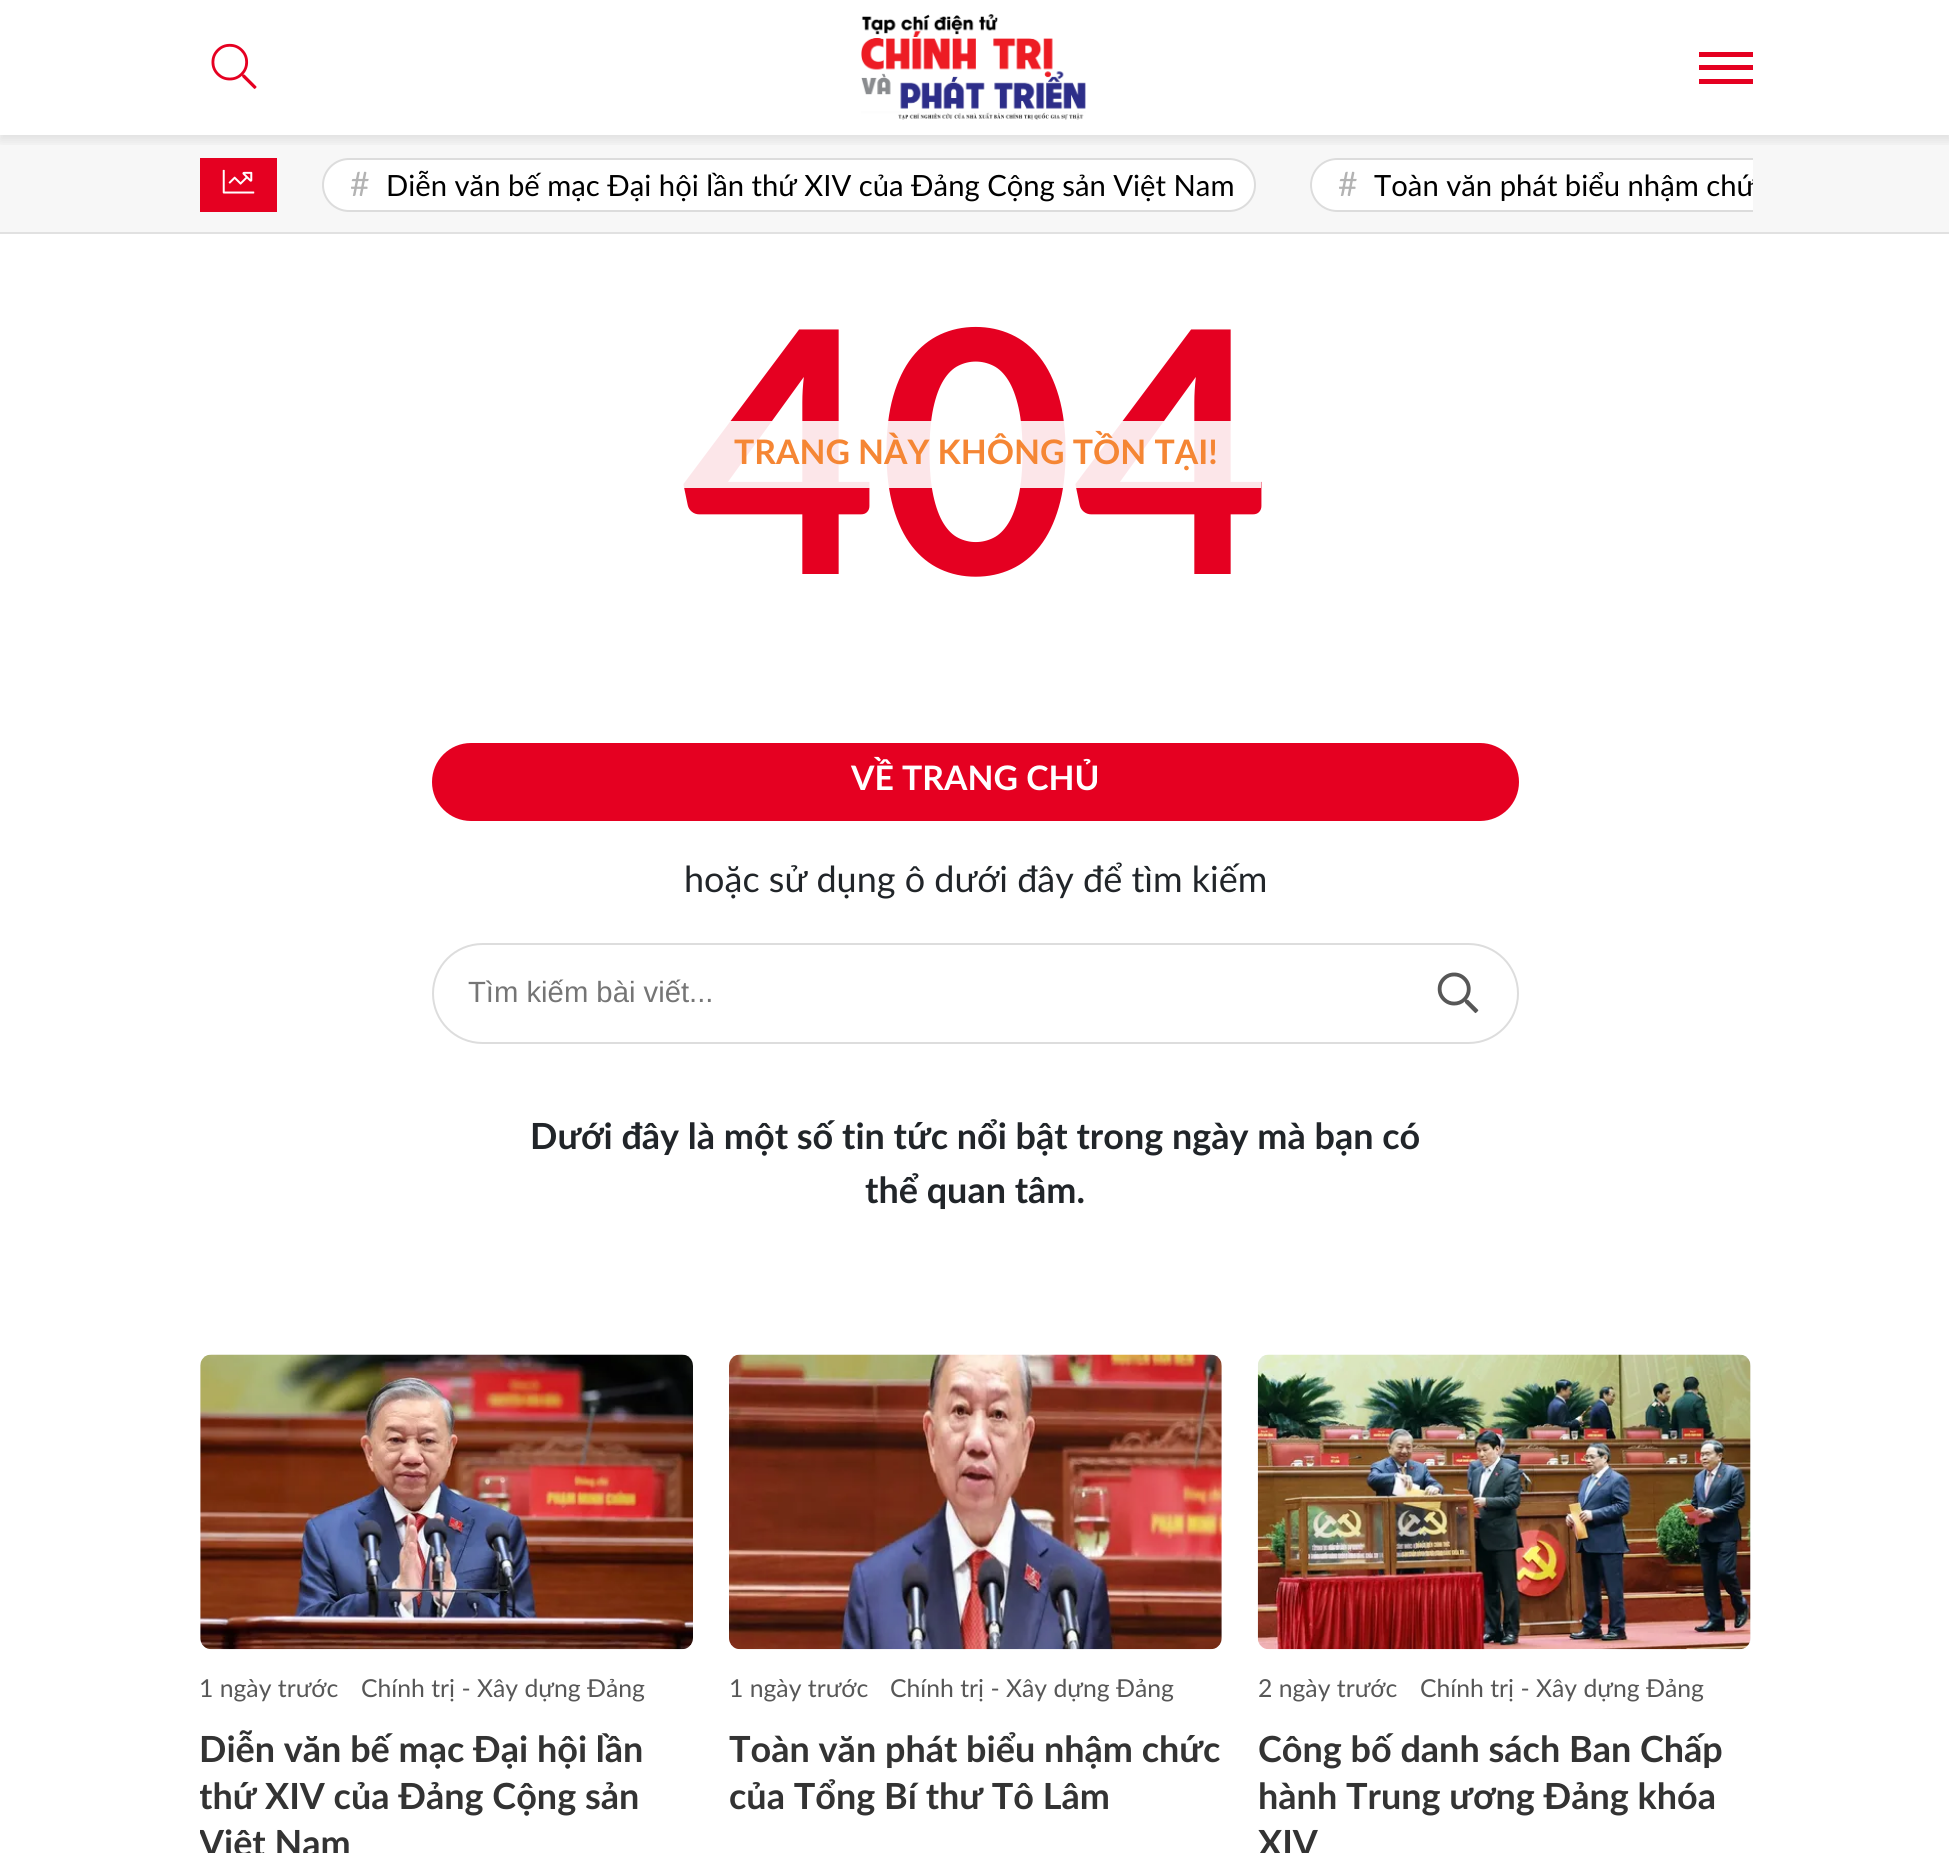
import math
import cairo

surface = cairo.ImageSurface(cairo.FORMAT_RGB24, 1949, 1853)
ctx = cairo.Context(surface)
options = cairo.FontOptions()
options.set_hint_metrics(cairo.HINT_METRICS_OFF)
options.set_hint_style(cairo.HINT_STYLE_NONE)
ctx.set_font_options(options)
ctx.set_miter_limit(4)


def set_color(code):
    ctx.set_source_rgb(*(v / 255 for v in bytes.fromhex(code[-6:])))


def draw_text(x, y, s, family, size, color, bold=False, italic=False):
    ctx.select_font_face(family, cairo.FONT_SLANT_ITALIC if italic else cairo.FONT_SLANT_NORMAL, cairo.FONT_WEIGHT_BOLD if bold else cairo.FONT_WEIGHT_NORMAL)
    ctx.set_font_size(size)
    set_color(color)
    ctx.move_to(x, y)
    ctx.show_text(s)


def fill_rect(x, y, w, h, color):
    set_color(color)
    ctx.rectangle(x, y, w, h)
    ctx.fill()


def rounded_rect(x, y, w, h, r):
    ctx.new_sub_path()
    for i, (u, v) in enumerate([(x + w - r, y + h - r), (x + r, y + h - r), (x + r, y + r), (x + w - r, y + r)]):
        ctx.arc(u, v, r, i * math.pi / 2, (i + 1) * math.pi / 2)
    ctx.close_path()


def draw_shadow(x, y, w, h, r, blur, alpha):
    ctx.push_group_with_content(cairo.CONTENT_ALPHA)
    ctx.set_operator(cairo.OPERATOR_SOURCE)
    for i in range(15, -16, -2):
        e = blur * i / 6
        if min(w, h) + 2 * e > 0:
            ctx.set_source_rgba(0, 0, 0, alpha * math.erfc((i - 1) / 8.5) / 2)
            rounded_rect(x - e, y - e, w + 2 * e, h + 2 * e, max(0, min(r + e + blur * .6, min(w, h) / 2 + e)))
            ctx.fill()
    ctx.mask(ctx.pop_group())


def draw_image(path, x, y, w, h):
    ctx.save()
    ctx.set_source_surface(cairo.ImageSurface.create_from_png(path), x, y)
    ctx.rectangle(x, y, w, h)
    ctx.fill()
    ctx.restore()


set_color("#ffffff")
ctx.paint()
fill_rect(0, 135, 1949, 97, "#f7f7f7")
ctx.save()
ctx.rectangle(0, 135, 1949, 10)
ctx.clip()
set_color("#000000")
draw_shadow(0, 5, 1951, 135, 0, 5.5, 0.1)
ctx.restore()
draw_image("assets/img1.png", 211, 43, 46, 46)
draw_image("assets/img2.png", 861, 14, 225, 106)
fill_rect(1699, 65, 54, 5, "#e50021")
fill_rect(1699, 52, 54, 5, "#e50021")
fill_rect(1699, 79, 54, 5, "#e50021")
fill_rect(0, 232, 1949, 2, "#e1e1e1")
fill_rect(200, 158, 77, 54, "#e50021")
draw_image("assets/img3.png", 222, 169, 33, 25)
set_color("#ffffff")
rounded_rect(323, 159, 932, 52, 26)
ctx.fill_preserve()
set_color("#dcdcdc")
ctx.stroke()
draw_text(350, 196, "#", "Lato", 33.75, "#b3b3b3")
draw_text(386, 196, "Diễn văn bế mạc Đại hội lần thứ XIV của Đảng Cộng sản Việt Nam", "Lato", 29.25, "#000000")
set_color("#ffffff")
ctx.new_path()
ctx.move_to(1337, 158)
ctx.line_to(1753, 158)
ctx.line_to(1753, 212)
ctx.line_to(1337, 212)
ctx.curve_to(1322, 212, 1310, 200, 1310, 185)
ctx.curve_to(1310, 170, 1322, 158, 1337, 158)
ctx.close_path()
ctx.fill()
ctx.save()
ctx.rectangle(299, 158, 1454, 54)
ctx.clip()
rounded_rect(1311, 159, 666, 52, 26)
set_color("#dcdcdc")
ctx.stroke()
ctx.restore()
draw_text(1338, 196, "#", "Lato", 33.75, "#b3b3b3")
ctx.save()
ctx.rectangle(299, 158, 1454, 54)
ctx.clip()
draw_text(1374, 196, "Toàn văn phát biểu nhậm chứ", "Lato", 29.25, "#000000")
ctx.restore()
draw_text(682, 574, "404", "Lato", 338, "#e50021", bold=True)
ctx.set_source_rgba(1, 1, 1, 0.9)
ctx.rectangle(683, 421, 578, 67)
ctx.fill()
draw_text(734, 464, "TRANG NÀY KHÔNG TỒN TẠI!", "Lato", 33.75, "#f58634", bold=True)
set_color("#e50021")
rounded_rect(433, 744, 1085, 76, 38)
ctx.fill_preserve()
ctx.stroke()
draw_text(851, 790, "VỀ TRANG CHỦ", "Lato", 33.75, "#ffffff", bold=True)
draw_text(684, 892, "hoặc sử dụng ô dưới đây để tìm kiếm", "Lato", 36, "#212529")
rounded_rect(433, 944, 1085, 99, 49.5)
set_color("#dddddd")
ctx.stroke()
draw_text(468, 1002, "Tìm kiếm bài viết...", "Liberation Sans", 29.25, "#757575")
draw_image("assets/img4.png", 1437, 972, 42, 42)
draw_text(530, 1149, "Dưới đây là một số tin tức nổi bật trong ngày mà bạn có", "Lato", 36, "#212529", bold=True)
draw_text(865, 1203, "thể quan tâm.", "Lato", 36, "#212529", bold=True)
set_color("#f5f4f4")
rounded_rect(200, 1355, 493, 294, 11)
ctx.fill()
draw_image("assets/img5.png", 200, 1354, 493, 296)
draw_text(199, 1697, "1 ngày trước", "Lato", 24.75, "#575757")
draw_text(361, 1697, "Chính trị - Xây dựng Đảng", "Lato", 24.75, "#575757")
draw_text(199, 1762, "Diễn văn bế mạc Đại hội lần", "Lato", 36, "#333333", bold=True)
ctx.save()
ctx.rectangle(200, 1728, 493, 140)
ctx.clip()
draw_text(199, 1809, "thứ XIV của Đảng Cộng sản", "Lato", 36, "#333333", bold=True)
draw_text(199, 1856, "Việt Nam", "Lato", 36, "#333333", bold=True)
ctx.restore()
set_color("#f5f4f4")
rounded_rect(729, 1355, 493, 294, 11)
ctx.fill()
draw_image("assets/img6.png", 729, 1354, 493, 296)
draw_text(729, 1697, "1 ngày trước", "Lato", 24.75, "#575757")
draw_text(890, 1697, "Chính trị - Xây dựng Đảng", "Lato", 24.75, "#575757")
draw_text(729, 1762, "Toàn văn phát biểu nhậm chức", "Lato", 36, "#333333", bold=True)
draw_text(729, 1809, "của Tổng Bí thư Tô Lâm", "Lato", 36, "#333333", bold=True)
set_color("#f5f4f4")
rounded_rect(1258, 1355, 493, 294, 11)
ctx.fill()
draw_image("assets/img7.png", 1257, 1354, 494, 296)
draw_text(1258, 1697, "2 ngày trước", "Lato", 24.75, "#575757")
draw_text(1420, 1697, "Chính trị - Xây dựng Đảng", "Lato", 24.75, "#575757")
draw_text(1258, 1762, "Công bố danh sách Ban Chấp", "Lato", 36, "#333333", bold=True)
draw_text(1258, 1809, "hành Trung ương Đảng khóa", "Lato", 36, "#333333", bold=True)
draw_text(1258, 1856, "XIV", "Lato", 36, "#333333", bold=True)
surface.write_to_png("output.png")
